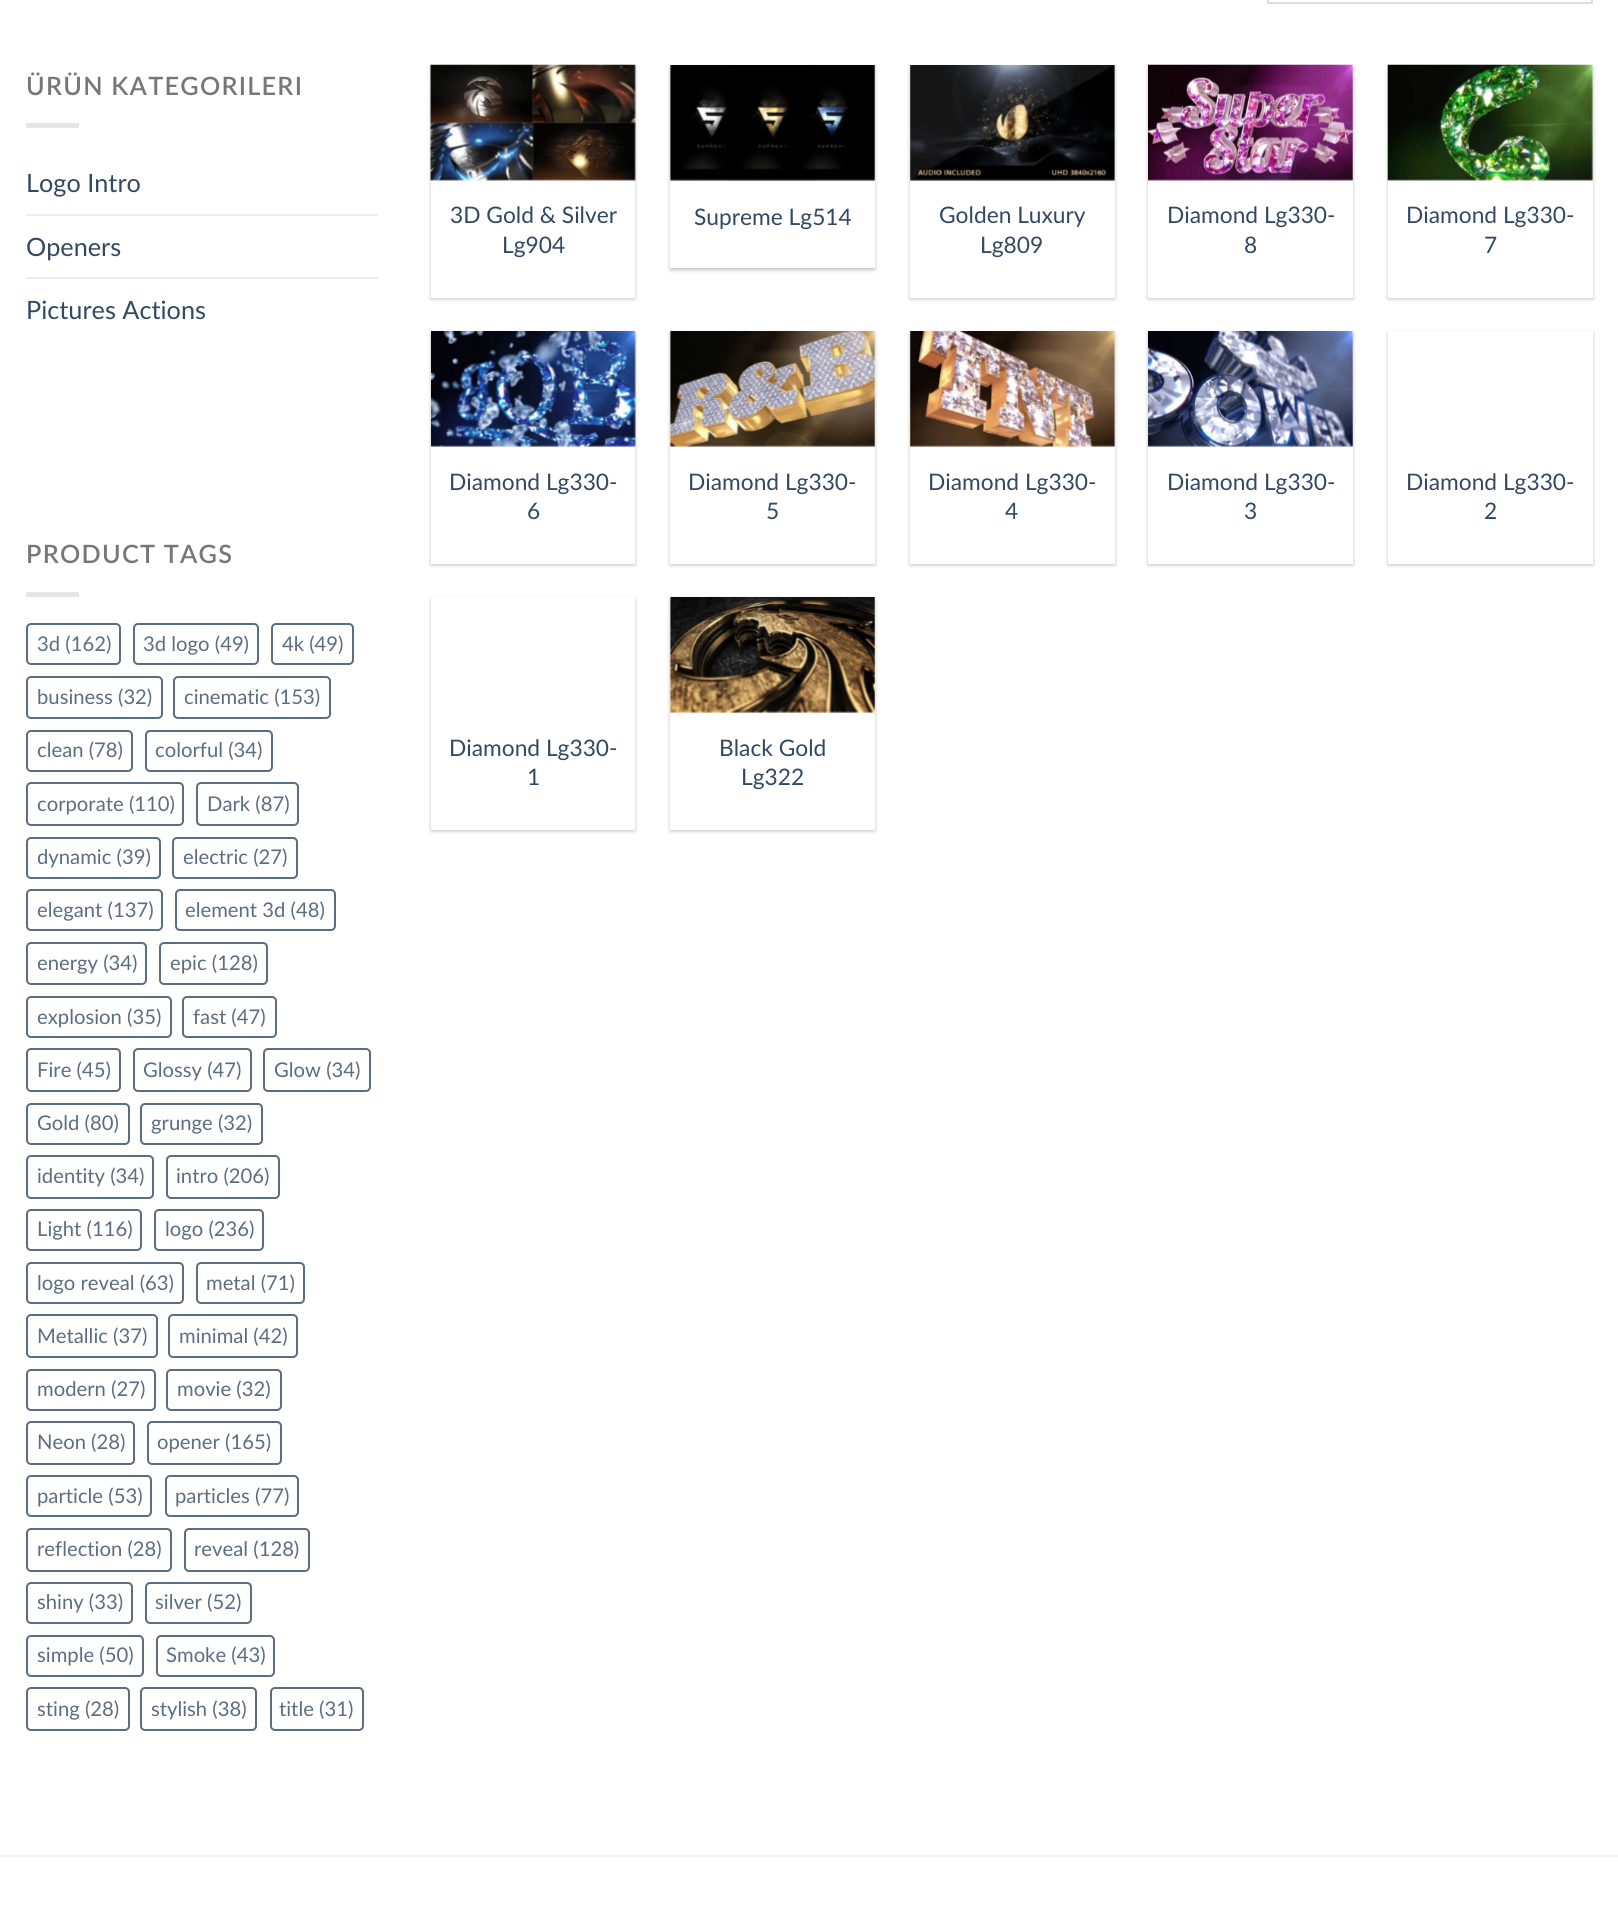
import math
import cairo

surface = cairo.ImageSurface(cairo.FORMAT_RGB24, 1618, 1920)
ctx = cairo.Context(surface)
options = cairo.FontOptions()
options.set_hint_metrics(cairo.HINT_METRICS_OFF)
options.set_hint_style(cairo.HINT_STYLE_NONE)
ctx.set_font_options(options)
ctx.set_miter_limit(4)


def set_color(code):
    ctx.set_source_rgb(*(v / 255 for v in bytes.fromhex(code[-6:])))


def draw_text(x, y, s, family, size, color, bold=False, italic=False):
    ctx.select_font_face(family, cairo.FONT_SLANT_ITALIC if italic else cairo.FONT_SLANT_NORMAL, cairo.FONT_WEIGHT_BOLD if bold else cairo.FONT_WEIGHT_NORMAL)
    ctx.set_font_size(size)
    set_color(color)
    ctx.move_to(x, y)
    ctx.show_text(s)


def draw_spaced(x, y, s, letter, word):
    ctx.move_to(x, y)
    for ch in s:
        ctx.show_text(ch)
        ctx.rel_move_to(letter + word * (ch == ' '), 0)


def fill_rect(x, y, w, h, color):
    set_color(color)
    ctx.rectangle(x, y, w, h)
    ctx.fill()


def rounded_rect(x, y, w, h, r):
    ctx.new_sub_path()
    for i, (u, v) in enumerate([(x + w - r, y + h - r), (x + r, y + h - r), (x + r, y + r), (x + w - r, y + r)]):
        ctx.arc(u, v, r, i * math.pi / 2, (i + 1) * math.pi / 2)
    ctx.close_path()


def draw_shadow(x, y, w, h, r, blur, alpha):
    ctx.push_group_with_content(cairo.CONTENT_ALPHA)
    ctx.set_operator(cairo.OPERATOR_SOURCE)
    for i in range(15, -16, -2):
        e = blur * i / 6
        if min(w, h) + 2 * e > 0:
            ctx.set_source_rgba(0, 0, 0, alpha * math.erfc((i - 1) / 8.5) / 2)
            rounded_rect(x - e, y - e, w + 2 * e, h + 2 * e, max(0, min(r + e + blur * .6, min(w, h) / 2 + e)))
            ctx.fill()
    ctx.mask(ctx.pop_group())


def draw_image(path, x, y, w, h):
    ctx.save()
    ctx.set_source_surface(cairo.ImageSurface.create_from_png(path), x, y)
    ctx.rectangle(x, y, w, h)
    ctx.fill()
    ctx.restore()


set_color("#ffffff")
ctx.paint()
ctx.rectangle(1268, -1, 324, 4)
set_color("#dddddd")
ctx.stroke()
ctx.select_font_face("Lato SemiBold")
ctx.set_font_size(25.25)
set_color("#777777")
draw_spaced(26, 95, "ÜRÜN KATEGORILERI", 1.25, 0)
fill_rect(26, 123, 53, 5, "#e6e6e6")
draw_text(26, 192, "Logo Intro", "Lato", 25.25, "#334862")
fill_rect(26, 214, 352, 2, "#ececec")
draw_text(26, 256, "Openers", "Lato", 25.25, "#334862")
fill_rect(26, 277, 352, 2, "#ececec")
draw_text(26, 319, "Pictures Actions", "Lato", 25.25, "#334862")
ctx.select_font_face("Lato SemiBold")
set_color("#777777")
draw_spaced(26, 563, "PRODUCT TAGS", 1.25, 0)
fill_rect(26, 592, 53, 5, "#e6e6e6")
rounded_rect(27, 624, 93, 40, 4)
set_color("#5c6d81")
ctx.stroke()
draw_text(37, 651, "3d (162)", "Lato", 20.25, "#5c6d81")
rounded_rect(134, 624, 124, 40, 4)
ctx.stroke()
draw_text(143, 651, "3d logo (49)", "Lato", 20.25, "#5c6d81")
rounded_rect(272, 624, 81, 40, 4)
ctx.stroke()
draw_text(282, 651, "4k (49)", "Lato", 20.25, "#5c6d81")
rounded_rect(27, 677, 135, 41, 4)
ctx.stroke()
draw_text(37, 704, "business (32)", "Lato", 20.25, "#5c6d81")
rounded_rect(174, 677, 156, 41, 4)
ctx.stroke()
draw_text(184, 704, "cinematic (153)", "Lato", 20.25, "#5c6d81")
rounded_rect(27, 731, 105, 40, 4)
ctx.stroke()
draw_text(37, 757, "clean (78)", "Lato", 20.25, "#5c6d81")
rounded_rect(146, 731, 126, 40, 4)
ctx.stroke()
draw_text(155, 757, "colorful (34)", "Lato", 20.25, "#5c6d81")
rounded_rect(27, 783, 156, 42, 4)
ctx.stroke()
draw_text(37, 811, "corporate (110)", "Lato", 20.25, "#5c6d81")
rounded_rect(197, 783, 101, 42, 4)
ctx.stroke()
draw_text(207, 811, "Dark (87)", "Lato", 20.25, "#5c6d81")
rounded_rect(27, 838, 133, 40, 4)
ctx.stroke()
draw_text(37, 864, "dynamic (39)", "Lato", 20.25, "#5c6d81")
rounded_rect(173, 838, 124, 40, 4)
ctx.stroke()
draw_text(183, 864, "electric (27)", "Lato", 20.25, "#5c6d81")
rounded_rect(27, 890, 135, 40, 4)
ctx.stroke()
draw_text(37, 917, "elegant (137)", "Lato", 20.25, "#5c6d81")
rounded_rect(176, 890, 159, 40, 4)
ctx.stroke()
draw_text(185, 917, "element 3d (48)", "Lato", 20.25, "#5c6d81")
rounded_rect(27, 943, 119, 41, 4)
ctx.stroke()
draw_text(37, 970, "energy (34)", "Lato", 20.25, "#5c6d81")
rounded_rect(160, 943, 107, 41, 4)
ctx.stroke()
draw_text(170, 970, "epic (128)", "Lato", 20.25, "#5c6d81")
rounded_rect(27, 997, 144, 40, 4)
ctx.stroke()
draw_text(37, 1024, "explosion (35)", "Lato", 20.25, "#5c6d81")
rounded_rect(183, 997, 93, 40, 4)
ctx.stroke()
draw_text(193, 1024, "fast (47)", "Lato", 20.25, "#5c6d81")
rounded_rect(27, 1049, 93, 42, 4)
ctx.stroke()
draw_text(37, 1077, "Fire (45)", "Lato", 20.25, "#5c6d81")
rounded_rect(134, 1049, 117, 42, 4)
ctx.stroke()
draw_text(143, 1077, "Glossy (47)", "Lato", 20.25, "#5c6d81")
rounded_rect(264, 1049, 106, 42, 4)
ctx.stroke()
draw_text(274, 1077, "Glow (34)", "Lato", 20.25, "#5c6d81")
rounded_rect(27, 1104, 102, 40, 4)
ctx.stroke()
draw_text(37, 1130, "Gold (80)", "Lato", 20.25, "#5c6d81")
rounded_rect(141, 1104, 121, 40, 4)
ctx.stroke()
draw_text(151, 1130, "grunge (32)", "Lato", 20.25, "#5c6d81")
rounded_rect(27, 1156, 126, 42, 4)
ctx.stroke()
draw_text(37, 1183, "identity (34)", "Lato", 20.25, "#5c6d81")
rounded_rect(167, 1156, 112, 42, 4)
ctx.stroke()
draw_text(176, 1183, "intro (206)", "Lato", 20.25, "#5c6d81")
rounded_rect(27, 1210, 114, 40, 4)
ctx.stroke()
draw_text(37, 1236, "Light (116)", "Lato", 20.25, "#5c6d81")
rounded_rect(155, 1210, 108, 40, 4)
ctx.stroke()
draw_text(165, 1236, "logo (236)", "Lato", 20.25, "#5c6d81")
rounded_rect(27, 1263, 156, 40, 4)
ctx.stroke()
draw_text(37, 1290, "logo reveal (63)", "Lato", 20.25, "#5c6d81")
rounded_rect(197, 1263, 107, 40, 4)
ctx.stroke()
draw_text(206, 1290, "metal (71)", "Lato", 20.25, "#5c6d81")
rounded_rect(27, 1315, 130, 42, 4)
ctx.stroke()
draw_text(37, 1343, "Metallic (37)", "Lato", 20.25, "#5c6d81")
rounded_rect(169, 1315, 128, 42, 4)
ctx.stroke()
draw_text(179, 1343, "minimal (42)", "Lato", 20.25, "#5c6d81")
rounded_rect(27, 1370, 128, 40, 4)
ctx.stroke()
draw_text(37, 1396, "modern (27)", "Lato", 20.25, "#5c6d81")
rounded_rect(167, 1370, 114, 40, 4)
ctx.stroke()
draw_text(177, 1396, "movie (32)", "Lato", 20.25, "#5c6d81")
rounded_rect(27, 1422, 107, 42, 4)
ctx.stroke()
draw_text(37, 1449, "Neon (28)", "Lato", 20.25, "#5c6d81")
rounded_rect(148, 1422, 133, 42, 4)
ctx.stroke()
draw_text(157, 1449, "opener (165)", "Lato", 20.25, "#5c6d81")
rounded_rect(27, 1476, 124, 40, 4)
ctx.stroke()
draw_text(37, 1503, "particle (53)", "Lato", 20.25, "#5c6d81")
rounded_rect(166, 1476, 132, 40, 4)
ctx.stroke()
draw_text(175, 1503, "particles (77)", "Lato", 20.25, "#5c6d81")
rounded_rect(27, 1529, 144, 42, 4)
ctx.stroke()
draw_text(37, 1556, "reflection (28)", "Lato", 20.25, "#5c6d81")
rounded_rect(185, 1529, 124, 42, 4)
ctx.stroke()
draw_text(194, 1556, "reveal (128)", "Lato", 20.25, "#5c6d81")
rounded_rect(27, 1583, 105, 40, 4)
ctx.stroke()
draw_text(37, 1609, "shiny (33)", "Lato", 20.25, "#5c6d81")
rounded_rect(146, 1583, 105, 40, 4)
ctx.stroke()
draw_text(155, 1609, "silver (52)", "Lato", 20.25, "#5c6d81")
rounded_rect(27, 1636, 116, 40, 4)
ctx.stroke()
draw_text(37, 1662, "simple (50)", "Lato", 20.25, "#5c6d81")
rounded_rect(157, 1636, 117, 40, 4)
ctx.stroke()
draw_text(166, 1662, "Smoke (43)", "Lato", 20.25, "#5c6d81")
rounded_rect(27, 1688, 102, 42, 4)
ctx.stroke()
draw_text(37, 1716, "sting (28)", "Lato", 20.25, "#5c6d81")
rounded_rect(141, 1688, 115, 42, 4)
ctx.stroke()
draw_text(151, 1716, "stylish (38)", "Lato", 20.25, "#5c6d81")
rounded_rect(271, 1688, 92, 42, 4)
ctx.stroke()
draw_text(279, 1716, "title (31)", "Lato", 20.25, "#5c6d81")
set_color("#000000")
draw_shadow(431, 67, 204, 232, 0, 2, 0.24)
fill_rect(431, 65, 204, 233, "#ffffff")
draw_image("assets/img1.png", 430, 64, 206, 117)
draw_text(450, 223, "3D Gold & Silver", "Lato", 22.75, "#334862")
draw_text(502, 253, "Lg904", "Lato", 22.75, "#334862")
set_color("#000000")
draw_shadow(670, 67, 205, 203, 0, 2, 0.24)
fill_rect(670, 65, 205, 203, "#ffffff")
draw_image("assets/img2.png", 670, 65, 205, 116)
draw_text(694, 225, "Supreme Lg514", "Lato", 22.75, "#334862")
set_color("#000000")
draw_shadow(910, 67, 205, 232, 0, 2, 0.24)
fill_rect(910, 65, 205, 233, "#ffffff")
draw_image("assets/img3.png", 910, 65, 205, 116)
draw_text(939, 223, "Golden Luxury", "Lato", 22.75, "#334862")
draw_text(980, 253, "Lg809", "Lato", 22.75, "#334862")
set_color("#000000")
draw_shadow(1148, 67, 205, 232, 0, 2, 0.24)
fill_rect(1148, 65, 205, 233, "#ffffff")
draw_image("assets/img4.png", 1148, 64, 205, 117)
draw_text(1167, 223, "Diamond Lg330-", "Lato", 22.75, "#334862")
draw_text(1244, 253, "8", "Lato", 22.75, "#334862")
set_color("#000000")
draw_shadow(1388, 67, 205, 232, 0, 2, 0.24)
fill_rect(1388, 65, 205, 233, "#ffffff")
draw_image("assets/img5.png", 1387, 64, 206, 117)
draw_text(1406, 223, "Diamond Lg330-", "Lato", 22.75, "#334862")
draw_text(1484, 253, "7", "Lato", 22.75, "#334862")
set_color("#000000")
draw_shadow(431, 333, 204, 232, 0, 2, 0.24)
fill_rect(431, 331, 204, 233, "#ffffff")
draw_image("assets/img6.png", 431, 331, 205, 116)
draw_text(449, 490, "Diamond Lg330-", "Lato", 22.75, "#334862")
draw_text(527, 519, "6", "Lato", 22.75, "#334862")
set_color("#000000")
draw_shadow(670, 333, 205, 232, 0, 2, 0.24)
fill_rect(670, 331, 205, 233, "#ffffff")
draw_image("assets/img7.png", 670, 331, 205, 116)
draw_text(688, 490, "Diamond Lg330-", "Lato", 22.75, "#334862")
draw_text(766, 519, "5", "Lato", 22.75, "#334862")
set_color("#000000")
draw_shadow(910, 333, 205, 232, 0, 2, 0.24)
fill_rect(910, 331, 205, 233, "#ffffff")
draw_image("assets/img8.png", 910, 331, 205, 116)
draw_text(928, 490, "Diamond Lg330-", "Lato", 22.75, "#334862")
draw_text(1005, 519, "4", "Lato", 22.75, "#334862")
set_color("#000000")
draw_shadow(1148, 333, 205, 232, 0, 2, 0.24)
fill_rect(1148, 331, 205, 233, "#ffffff")
draw_image("assets/img9.png", 1148, 331, 205, 116)
draw_text(1167, 490, "Diamond Lg330-", "Lato", 22.75, "#334862")
draw_text(1244, 519, "3", "Lato", 22.75, "#334862")
set_color("#000000")
draw_shadow(1388, 333, 205, 232, 0, 2, 0.24)
fill_rect(1388, 331, 205, 233, "#ffffff")
draw_text(1406, 490, "Diamond Lg330-", "Lato", 22.75, "#334862")
draw_text(1484, 519, "2", "Lato", 22.75, "#334862")
set_color("#000000")
draw_shadow(431, 599, 204, 232, 0, 2, 0.24)
fill_rect(431, 597, 204, 233, "#ffffff")
draw_text(449, 756, "Diamond Lg330-", "Lato", 22.75, "#334862")
draw_text(527, 785, "1", "Lato", 22.75, "#334862")
set_color("#000000")
draw_shadow(670, 599, 205, 232, 0, 2, 0.24)
fill_rect(670, 597, 205, 233, "#ffffff")
draw_image("assets/img10.png", 670, 597, 205, 116)
draw_text(719, 756, "Black Gold", "Lato", 22.75, "#334862")
draw_text(741, 785, "Lg322", "Lato", 22.75, "#334862")
fill_rect(0, 1855, 1618, 2, "#f2f2f2")
surface.write_to_png("output.png")
